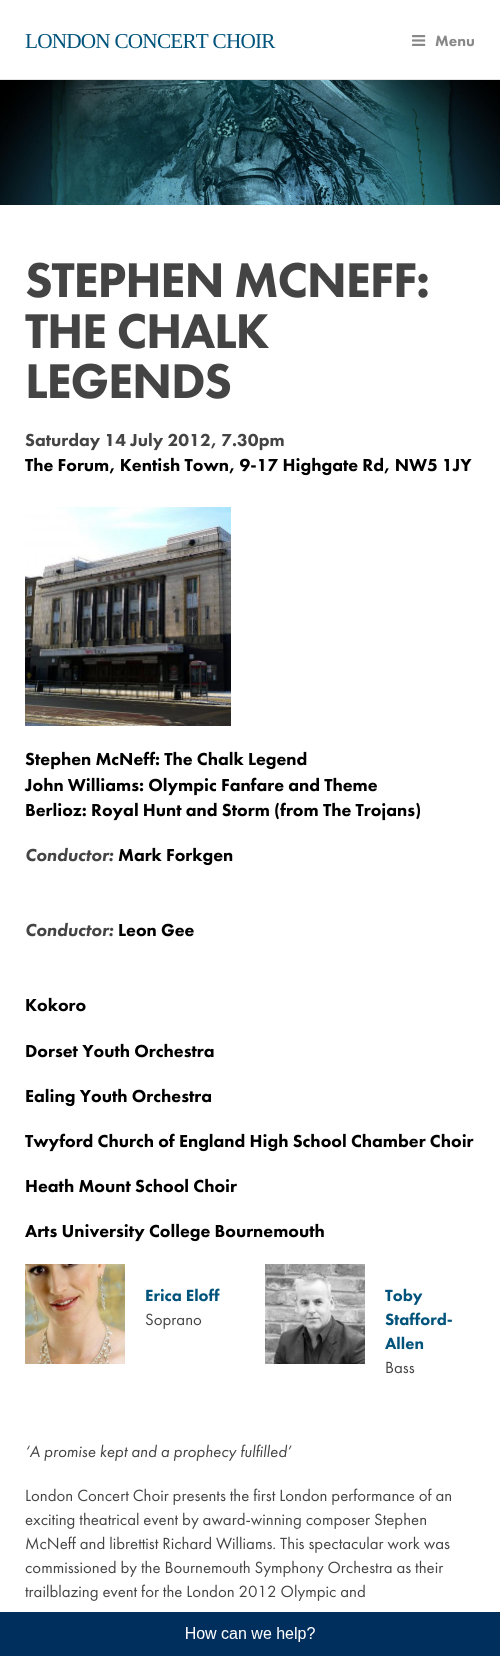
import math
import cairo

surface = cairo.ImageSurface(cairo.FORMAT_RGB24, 500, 1656)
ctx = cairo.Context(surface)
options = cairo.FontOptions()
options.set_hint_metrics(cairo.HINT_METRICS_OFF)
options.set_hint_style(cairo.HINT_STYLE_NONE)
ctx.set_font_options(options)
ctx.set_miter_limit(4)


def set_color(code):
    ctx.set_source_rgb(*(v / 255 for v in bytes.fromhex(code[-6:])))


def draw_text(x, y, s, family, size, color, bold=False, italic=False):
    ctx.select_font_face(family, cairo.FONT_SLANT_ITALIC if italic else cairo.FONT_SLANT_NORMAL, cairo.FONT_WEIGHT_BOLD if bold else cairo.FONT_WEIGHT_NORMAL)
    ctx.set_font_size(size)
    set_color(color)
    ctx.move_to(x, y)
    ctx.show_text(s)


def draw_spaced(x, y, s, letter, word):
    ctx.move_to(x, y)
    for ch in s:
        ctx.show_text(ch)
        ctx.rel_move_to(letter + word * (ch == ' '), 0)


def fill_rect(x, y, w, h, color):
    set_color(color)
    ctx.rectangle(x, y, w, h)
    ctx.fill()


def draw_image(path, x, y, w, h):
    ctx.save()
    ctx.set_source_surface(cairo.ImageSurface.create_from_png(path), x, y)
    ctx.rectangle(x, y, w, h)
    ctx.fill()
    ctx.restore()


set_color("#ffffff")
ctx.paint()
fill_rect(0, 79, 500, 1, "#e4e4e4")
ctx.select_font_face("Liberation Serif")
ctx.set_font_size(21.25)
set_color("#00537b")
draw_spaced(25, 48, "LONDON CONCERT CHOIR", -0.8, 0)
draw_image("assets/img1.png", 412, 35, 14, 11)
draw_text(435, 46, "Menu", "Futura PT Black", 15.5, "#888888")
draw_image("assets/img2.png", 0, 80, 500, 125)
ctx.set_font_size(50.5)
set_color("#444444")
draw_spaced(25, 297, "STEPHEN MCNEFF:", -1.25, 0)
draw_spaced(25, 348, "THE CHALK", -1.25, 0)
draw_spaced(25, 398, "LEGENDS", -1.25, 0)
draw_text(25, 446, "Saturday 14 July 2012, 7.30pm", "Futura PT Black", 18, "#444444")
draw_text(25, 471, "The Forum, Kentish Town, 9-17 Highgate Rd, NW5 1JY", "Futura PT Black", 18, "#000000")
draw_image("assets/img3.png", 25, 507, 206, 219)
draw_text(25, 765, "Stephen McNeff: The Chalk Legend", "Futura PT Black", 18, "#000000")
draw_text(25, 791, "John Williams: Olympic Fanfare and Theme", "Futura PT Black", 18, "#000000")
draw_text(25, 816, "Berlioz: Royal Hunt and Storm (from The Trojans)", "Futura PT Black", 18, "#000000")
draw_text(25, 861, "Conductor:", "Futura PT Black", 18, "#444444", italic=True)
draw_text(118, 861, "Mark Forkgen", "Futura PT Black", 18, "#000000")
draw_text(25, 936, "Conductor:", "Futura PT Black", 18, "#444444", italic=True)
draw_text(118, 936, "Leon Gee", "Futura PT Black", 18, "#000000")
draw_text(25, 1011, "Kokoro", "Futura PT Black", 18, "#000000")
draw_text(25, 1057, "Dorset Youth Orchestra", "Futura PT Black", 18, "#000000")
draw_text(25, 1102, "Ealing Youth Orchestra", "Futura PT Black", 18, "#000000")
draw_text(25, 1147, "Twyford Church of England High School Chamber Choir", "Futura PT Black", 18, "#000000")
draw_text(25, 1192, "Heath Mount School Choir", "Futura PT Black", 18, "#000000")
draw_text(25, 1237, "Arts University College Bournemouth", "Futura PT Black", 18, "#000000")
draw_image("assets/img4.png", 25, 1264, 100, 100)
draw_text(145, 1301, "Erica Eloff", "Futura PT Black", 16.8, "#00537b")
draw_text(145, 1325, "Soprano", "Futura PT", 16.8, "#444444")
draw_image("assets/img5.png", 265, 1264, 100, 100)
draw_text(385, 1301, "Toby", "Futura PT Black", 16.8, "#00537b")
draw_text(385, 1325, "Stafford-", "Futura PT Black", 16.8, "#00537b")
draw_text(385, 1349, "Allen", "Futura PT Black", 16.8, "#00537b")
draw_text(385, 1373, "Bass", "Futura PT", 16.8, "#444444")
draw_text(25, 1457, "‘A promise kept and a prophecy fulfilled’", "Futura PT", 16.8, "#444444", italic=True)
draw_text(25, 1501, "London Concert Choir presents the first London performance of an", "Futura PT", 16.8, "#444444")
draw_text(25, 1525, "exciting theatrical event by award-winning composer Stephen", "Futura PT", 16.8, "#444444")
draw_text(25, 1549, "McNeff and librettist Richard Williams. This spectacular work was", "Futura PT", 16.8, "#444444")
draw_text(25, 1573, "commissioned by the Bournemouth Symphony Orchestra as their", "Futura PT", 16.8, "#444444")
draw_text(25, 1597, "trailblazing event for the London 2012 Olympic and", "Futura PT", 16.8, "#444444")
draw_image("assets/img6.png", 0, 1612, 500, 44)
surface.write_to_png("output.png")
